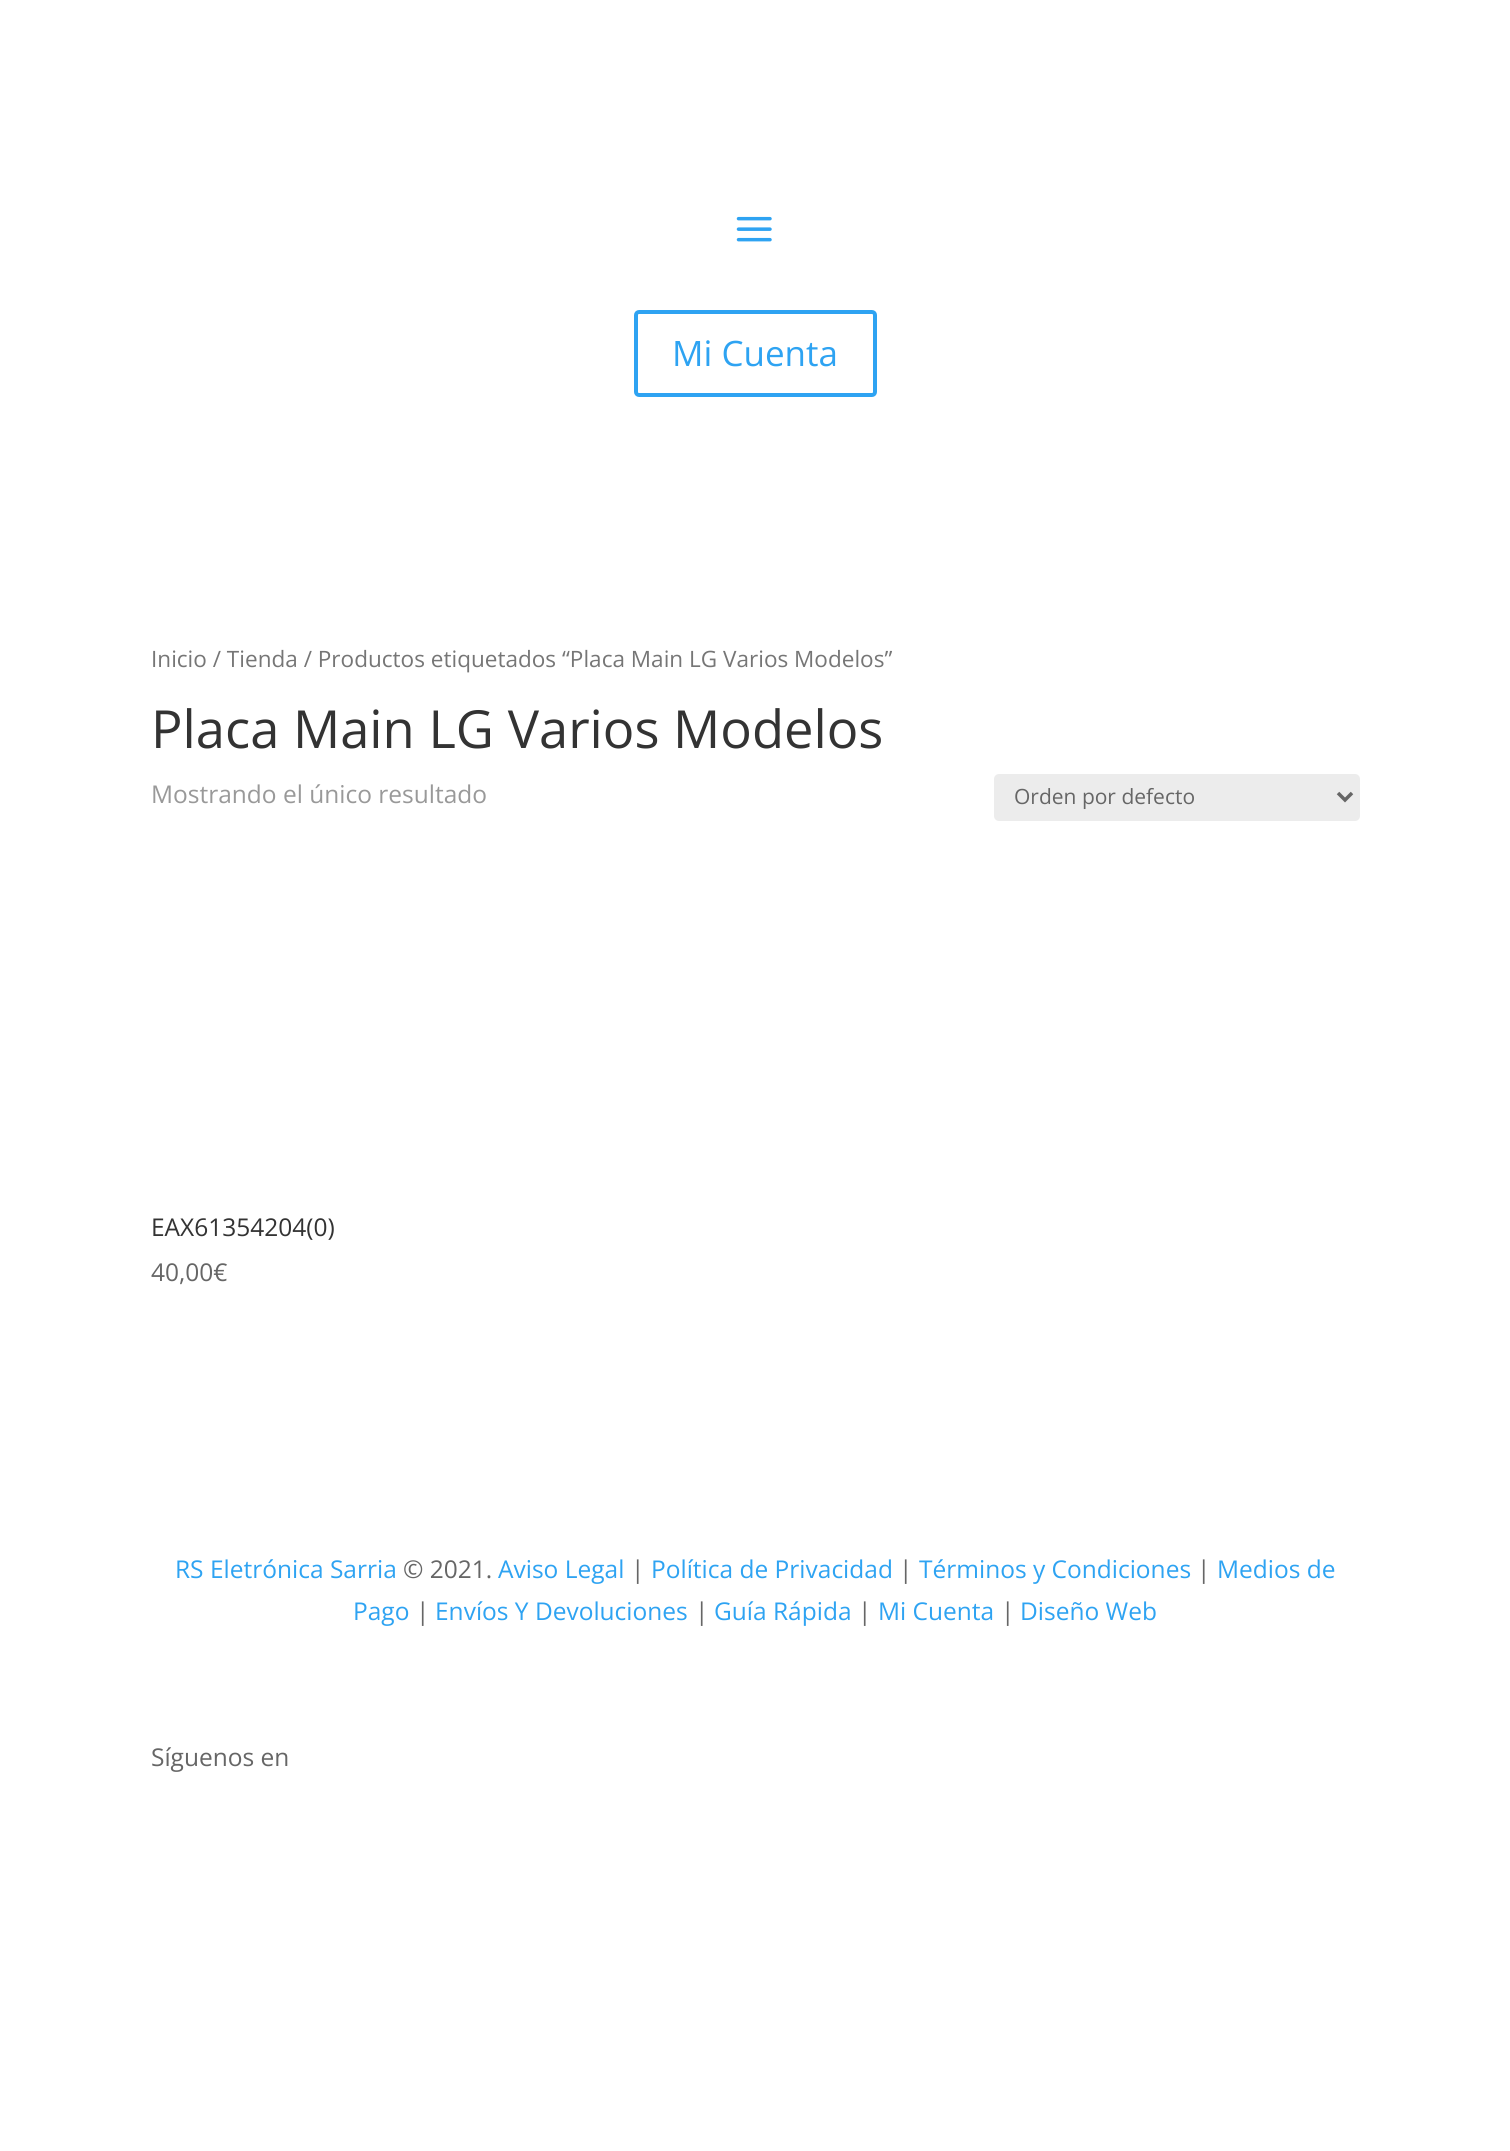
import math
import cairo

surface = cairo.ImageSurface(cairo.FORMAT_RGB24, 1510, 2151)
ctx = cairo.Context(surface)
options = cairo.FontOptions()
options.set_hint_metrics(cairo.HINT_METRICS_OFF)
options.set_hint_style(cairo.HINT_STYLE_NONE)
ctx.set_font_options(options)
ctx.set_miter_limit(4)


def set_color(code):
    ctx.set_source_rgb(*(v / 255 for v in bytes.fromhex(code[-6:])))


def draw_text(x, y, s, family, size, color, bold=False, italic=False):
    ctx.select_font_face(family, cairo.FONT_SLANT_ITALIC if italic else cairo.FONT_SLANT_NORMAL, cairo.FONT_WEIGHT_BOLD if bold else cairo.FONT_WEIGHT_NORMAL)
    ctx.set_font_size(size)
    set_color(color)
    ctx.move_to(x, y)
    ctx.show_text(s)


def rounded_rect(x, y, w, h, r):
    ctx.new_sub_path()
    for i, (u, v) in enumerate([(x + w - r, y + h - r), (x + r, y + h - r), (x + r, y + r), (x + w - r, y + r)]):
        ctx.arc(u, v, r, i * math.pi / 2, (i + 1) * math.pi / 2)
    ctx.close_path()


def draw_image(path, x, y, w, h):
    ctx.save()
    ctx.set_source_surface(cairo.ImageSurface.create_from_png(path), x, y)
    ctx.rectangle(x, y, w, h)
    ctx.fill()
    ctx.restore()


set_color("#ffffff")
ctx.paint()
draw_image("assets/img1.png", 736, 216, 36, 26)
rounded_rect(636, 312, 239, 83, 3)
set_color("#2ea3f2")
ctx.set_line_width(4)
ctx.stroke()
draw_text(672, 366, "Mi Cuenta", "Open Sans", 35, "#2ea3f2")
draw_text(151, 667, "Inicio / Tienda / Productos etiquetados “Placa Main LG Varios Modelos”", "Open Sans", 22.55, "#767676")
draw_text(151, 748, "Placa Main LG Varios Modelos", "Open Sans", 52.5, "#333333")
draw_text(151, 803, "Mostrando el único resultado", "Open Sans", 24.5, "#999999")
set_color("#ececec")
rounded_rect(994, 774, 366, 47, 5)
ctx.fill()
ctx.new_path()
ctx.move_to(1338, 793)
ctx.line_to(1345, 800)
ctx.line_to(1352, 793)
set_color("#666666")
ctx.set_line_width(3.5)
ctx.stroke()
draw_text(1014, 804, "Orden por defecto", "Open Sans", 21, "#666666")
draw_text(151, 1236, "EAX61354204(0)", "Open Sans", 24.5, "#333333")
draw_text(151, 1281, "40,00€", "Open Sans", 24.5, "#666666")
draw_text(175, 1578, "RS Eletrónica Sarria", "Open Sans", 24.5, "#2ea3f2")
draw_text(403, 1578, "© 2021.", "Open Sans", 24.5, "#666666")
draw_text(498, 1578, "Aviso Legal", "Open Sans", 24.5, "#2ea3f2")
draw_text(631, 1578, "|", "Open Sans", 24.5, "#666666")
draw_text(651, 1578, "Política de Privacidad", "Open Sans", 24.5, "#2ea3f2")
draw_text(899, 1578, "|", "Open Sans", 24.5, "#666666")
draw_text(919, 1578, "Términos y Condiciones", "Open Sans", 24.5, "#2ea3f2")
draw_text(1197, 1578, "|", "Open Sans", 24.5, "#666666")
draw_text(1217, 1578, "Medios de", "Open Sans", 24.5, "#2ea3f2")
draw_text(353, 1620, "Pago", "Open Sans", 24.5, "#2ea3f2")
draw_text(416, 1620, "|", "Open Sans", 24.5, "#666666")
draw_text(435, 1620, "Envíos Y Devoluciones", "Open Sans", 24.5, "#2ea3f2")
draw_text(695, 1620, "|", "Open Sans", 24.5, "#666666")
draw_text(714, 1620, "Guía Rápida", "Open Sans", 24.5, "#2ea3f2")
draw_text(858, 1620, "|", "Open Sans", 24.5, "#666666")
draw_text(878, 1620, "Mi Cuenta", "Open Sans", 24.5, "#2ea3f2")
draw_text(1001, 1620, "|", "Open Sans", 24.5, "#666666")
draw_text(1020, 1620, "Diseño Web", "Open Sans", 24.5, "#2ea3f2")
draw_text(151, 1766, "Síguenos en", "Open Sans", 24.5, "#666666")
surface.write_to_png("output.png")
